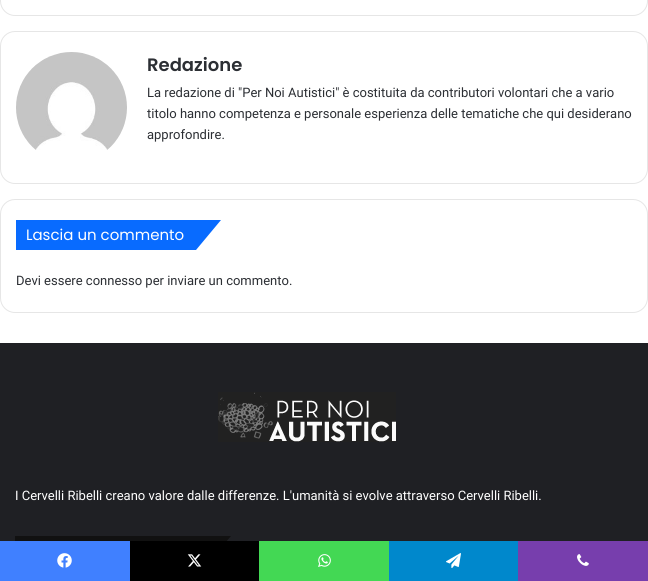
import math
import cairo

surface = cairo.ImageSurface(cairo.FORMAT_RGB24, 648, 581)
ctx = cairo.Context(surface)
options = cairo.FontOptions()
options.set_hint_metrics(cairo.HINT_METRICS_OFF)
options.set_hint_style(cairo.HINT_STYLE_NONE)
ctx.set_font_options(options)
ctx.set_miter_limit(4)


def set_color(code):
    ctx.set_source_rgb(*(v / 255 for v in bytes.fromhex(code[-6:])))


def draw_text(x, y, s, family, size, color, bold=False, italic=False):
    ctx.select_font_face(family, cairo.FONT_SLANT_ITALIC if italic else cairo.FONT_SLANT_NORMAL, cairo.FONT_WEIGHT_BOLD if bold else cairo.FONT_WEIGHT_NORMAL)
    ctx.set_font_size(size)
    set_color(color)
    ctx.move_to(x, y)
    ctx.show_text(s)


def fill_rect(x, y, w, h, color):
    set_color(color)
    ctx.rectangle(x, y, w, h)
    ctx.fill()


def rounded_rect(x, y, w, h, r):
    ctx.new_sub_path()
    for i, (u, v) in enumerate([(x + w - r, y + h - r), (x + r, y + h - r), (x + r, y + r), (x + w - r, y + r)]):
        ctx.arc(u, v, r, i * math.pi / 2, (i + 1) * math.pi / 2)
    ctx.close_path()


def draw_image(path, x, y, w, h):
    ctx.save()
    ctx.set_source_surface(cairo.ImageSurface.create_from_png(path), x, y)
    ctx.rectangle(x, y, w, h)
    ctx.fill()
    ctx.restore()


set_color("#ffffff")
ctx.paint()
rounded_rect(0.5, -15.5, 647, 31, 14.5)
set_color("#e6e6e6")
ctx.set_line_width(1)
ctx.stroke()
rounded_rect(0.5, 31.5, 647, 152, 14.5)
ctx.stroke()
draw_image("assets/img1.png", 16, 52, 111, 98)
draw_text(147, 71, "Redazione", "Poppins SemiBold", 18, "#2c2f34")
draw_text(147, 97, "La redazione di \"Per Noi Autistici\" è costituita da contributori volontari che a vario", "Roboto", 13, "#2c2f34")
draw_text(147, 118, "titolo hanno competenza e personale esperienza delle tematiche che qui desiderano", "Roboto", 13, "#2c2f34")
draw_text(147, 139, "approfondire.", "Roboto", 13, "#2c2f34")
rounded_rect(0.5, 199.5, 647, 113, 14.5)
set_color("#e6e6e6")
ctx.stroke()
fill_rect(16, 220, 80, 30, "#086bff")
ctx.new_path()
ctx.move_to(96, 220)
ctx.line_to(221, 220)
ctx.line_to(196, 250)
ctx.line_to(71, 250)
ctx.close_path()
ctx.fill()
draw_text(26, 240, "Lascia un commento", "Poppins", 15, "#ffffff")
draw_text(16, 285, "Devi essere connesso per inviare un commento.", "Roboto", 13, "#2c2f34")
fill_rect(0, 343, 648, 198, "#1f2024")
draw_image("assets/img2.png", 218, 392, 178, 50)
draw_text(15, 500, "I Cervelli Ribelli creano valore dalle differenze. L'umanità si evolve attraverso Cervelli Ribelli.", "Roboto", 13, "#ffffff")
fill_rect(15, 536, 82, 5, "#111111")
ctx.new_path()
ctx.move_to(97, 536)
ctx.line_to(231, 536)
ctx.line_to(208, 563)
ctx.line_to(75, 563)
ctx.close_path()
ctx.fill()
fill_rect(0, 541, 130, 40, "#4080ff")
draw_image("assets/img3.png", 57, 553, 15, 15)
fill_rect(130, 541, 129, 40, "#000000")
draw_image("assets/img4.png", 187, 554, 15, 13)
fill_rect(259, 541, 130, 40, "#43d854")
draw_image("assets/img5.png", 318, 554, 13, 13)
fill_rect(389, 541, 129, 40, "#0088cc")
draw_image("assets/img6.png", 446, 553, 15, 15)
fill_rect(518, 541, 130, 40, "#773ead")
draw_image("assets/img7.png", 577, 554, 12, 12)
surface.write_to_png("output.png")
